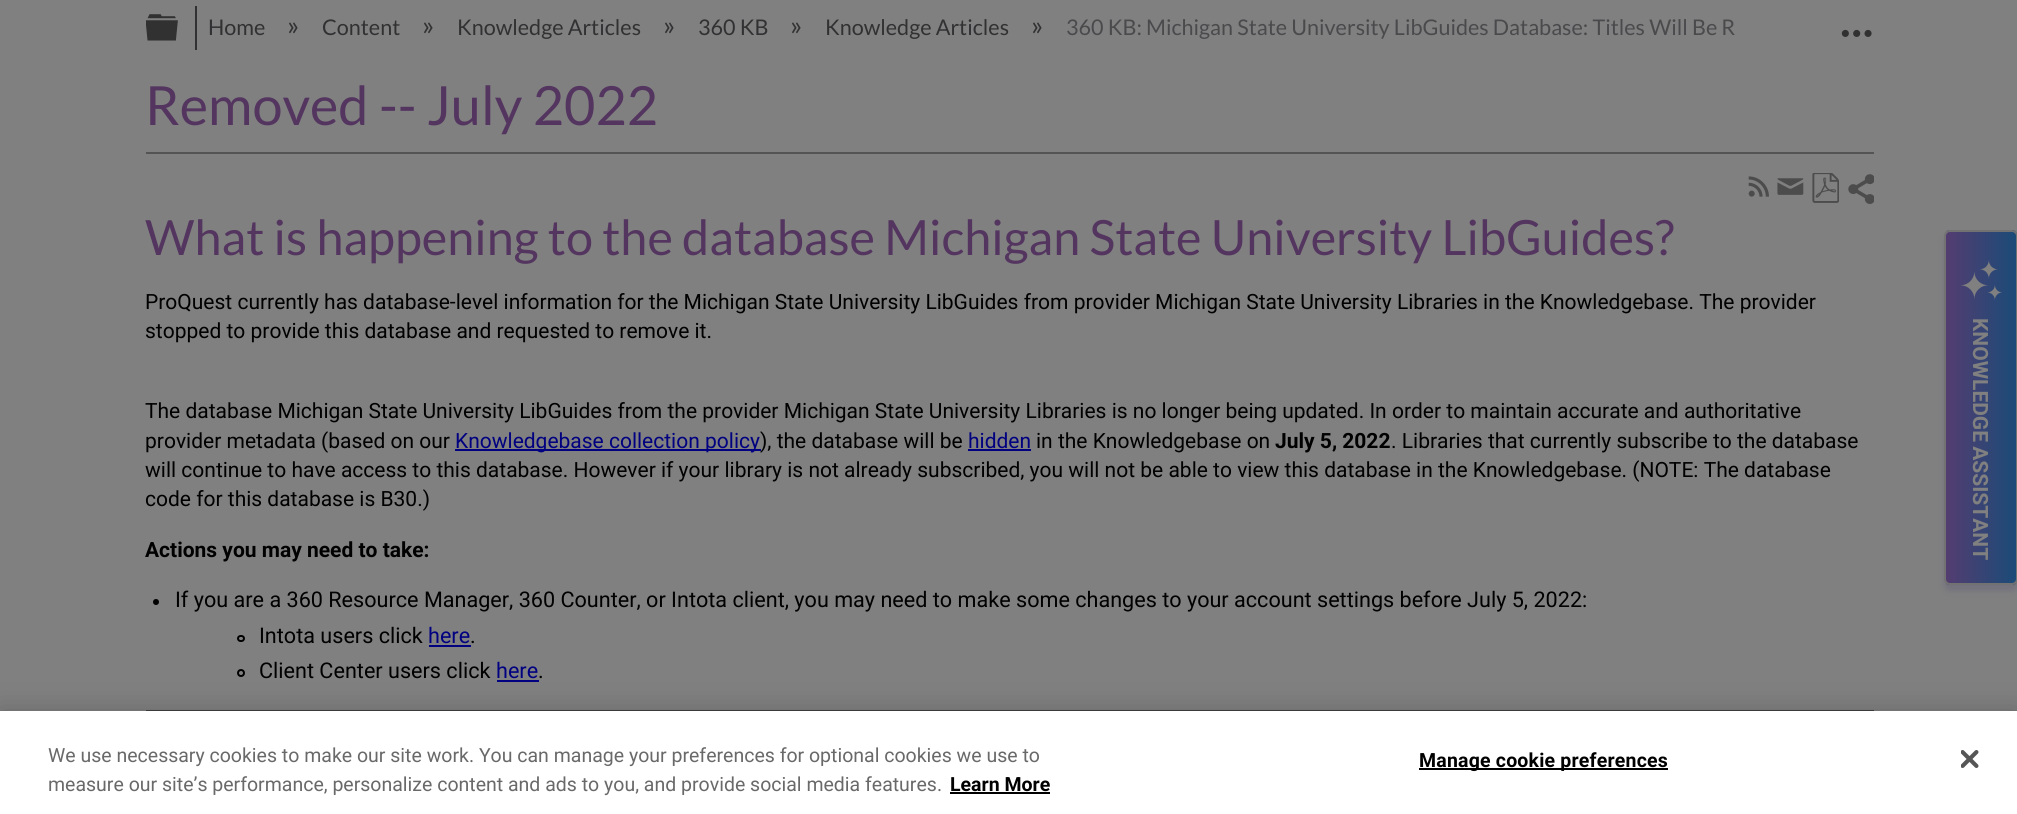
import math
import cairo

surface = cairo.ImageSurface(cairo.FORMAT_RGB24, 2017, 814)
ctx = cairo.Context(surface)
options = cairo.FontOptions()
options.set_hint_metrics(cairo.HINT_METRICS_OFF)
options.set_hint_style(cairo.HINT_STYLE_NONE)
ctx.set_font_options(options)
ctx.set_miter_limit(4)


def set_color(code):
    ctx.set_source_rgb(*(v / 255 for v in bytes.fromhex(code[-6:])))


def draw_text(x, y, s, family, size, color, bold=False, italic=False):
    ctx.select_font_face(family, cairo.FONT_SLANT_ITALIC if italic else cairo.FONT_SLANT_NORMAL, cairo.FONT_WEIGHT_BOLD if bold else cairo.FONT_WEIGHT_NORMAL)
    ctx.set_font_size(size)
    set_color(color)
    ctx.move_to(x, y)
    ctx.show_text(s)


def draw_spaced(x, y, s, letter, word):
    ctx.move_to(x, y)
    for ch in s:
        ctx.show_text(ch)
        ctx.rel_move_to(letter + word * (ch == ' '), 0)


def fill_rect(x, y, w, h, color):
    set_color(color)
    ctx.rectangle(x, y, w, h)
    ctx.fill()


def rounded_rect(x, y, w, h, r):
    ctx.new_sub_path()
    for i, (u, v) in enumerate([(x + w - r, y + h - r), (x + r, y + h - r), (x + r, y + r), (x + w - r, y + r)]):
        ctx.arc(u, v, r, i * math.pi / 2, (i + 1) * math.pi / 2)
    ctx.close_path()


def draw_shadow(x, y, w, h, r, blur, alpha):
    ctx.push_group_with_content(cairo.CONTENT_ALPHA)
    ctx.set_operator(cairo.OPERATOR_SOURCE)
    for i in range(15, -16, -2):
        e = blur * i / 6
        if min(w, h) + 2 * e > 0:
            ctx.set_source_rgba(0, 0, 0, alpha * math.erfc((i - 1) / 8.5) / 2)
            rounded_rect(x - e, y - e, w + 2 * e, h + 2 * e, max(0, min(r + e + blur * .6, min(w, h) / 2 + e)))
            ctx.fill()
    ctx.mask(ctx.pop_group())


def draw_image(path, x, y, w, h):
    ctx.save()
    ctx.set_source_surface(cairo.ImageSurface.create_from_png(path), x, y)
    ctx.rectangle(x, y, w, h)
    ctx.fill()
    ctx.restore()


set_color("#808080")
ctx.paint()
draw_image("assets/img1.png", 146, 14, 32, 27)
ctx.set_source_rgba(0.184, 0.18, 0.192, 0.97)
ctx.rectangle(195, 6, 2, 44)
ctx.fill()
draw_text(208, 35, "Home", "Lato", 21.6, "#313133")
draw_text(287, 35, "»", "Lato", 27, "#313133")
draw_text(322, 35, "Content", "Lato", 21.6, "#313133")
draw_text(422, 35, "»", "Lato", 27, "#313133")
draw_text(457, 35, "Knowledge Articles", "Lato", 21.6, "#313133")
draw_text(663, 35, "»", "Lato", 27, "#313133")
draw_text(698, 35, "360 KB", "Lato", 21.6, "#313133")
draw_text(790, 35, "»", "Lato", 27, "#313133")
draw_text(825, 35, "Knowledge Articles", "Lato", 21.6, "#313133")
draw_text(1031, 35, "»", "Lato", 27, "#313133")
draw_text(1066, 35, "360 KB: Michigan State University LibGuides Database: Titles Will Be R", "Lato", 21.6, "#4a494c")
draw_image("assets/img2.png", 1841, 29, 31, 8)
set_color("#423c73")
draw_shadow(1944, 236, 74, 355, 6, 3, 0.2)
ctx.save()
rounded_rect(1944, 230, 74, 355, 6)
ctx.clip()
gradient = cairo.LinearGradient(1946, 408, 2016, 408)
gradient.add_color_stop_rgba(0, 0.329, 0.239, 0.439, 1)
gradient.add_color_stop_rgba(1, 0.106, 0.294, 0.471, 1)
ctx.set_source(gradient)
ctx.rectangle(1946, 230, 70, 355)
ctx.fill()
ctx.restore()
rounded_rect(1945, 231, 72, 353, 5)
set_color("#727272")
ctx.stroke()
draw_image("assets/img3.png", 1961, 260, 42, 40)
ctx.select_font_face("Roboto", cairo.FONT_SLANT_NORMAL, cairo.FONT_WEIGHT_BOLD)
ctx.set_font_size(21)
set_color("#808080")
ctx.save()
ctx.translate(1973, 318)
ctx.rotate(90 * math.pi / 180)
draw_spaced(0, 0, "KNOWLEDGE ASSISTANT", 0, -1)
ctx.restore()
fill_rect(146, 152, 1728, 2, "#545454")
draw_text(145, 125, "Removed -- July 2022", "Lato", 54, "#53355f")
draw_image("assets/img4.png", 1748, 176, 21, 21)
draw_image("assets/img5.png", 1777, 178, 27, 17)
draw_image("assets/img6.png", 1812, 173, 27, 30)
draw_image("assets/img7.png", 1848, 174, 26, 30)
ctx.set_font_size(48.6)
draw_spaced(145, 255, "What is happening to the database Michigan State University LibGuides?", 0, -0.1)
draw_text(145, 309, "ProQuest currently has database-level information for the Michigan State University LibGuides from provider Michigan State University Libraries in the Knowledgebase. The provider", "Roboto", 21, "#000000")
draw_text(145, 338, "stopped to provide this database and requested to remove it.", "Roboto", 21, "#000000")
draw_text(145, 418, "The database Michigan State University LibGuides from the provider Michigan State University Libraries is no longer being updated. In order to maintain accurate and authoritative", "Roboto", 21, "#000000")
draw_text(145, 448, "provider metadata (based on our", "Roboto", 21, "#000000")
fill_rect(455, 449, 306, 2, "#000080")
draw_text(455, 448, "Knowledgebase collection policy", "Roboto", 21, "#000080")
draw_text(760, 448, "), the database will be", "Roboto", 21, "#000000")
draw_text(968, 448, "hidden", "Roboto", 21, "#000080")
fill_rect(968, 449, 63, 2, "#000080")
draw_text(1036, 448, "in the Knowledgebase on", "Roboto", 21, "#000000")
draw_text(1275, 448, "July 5, 2022", "Roboto", 21, "#000000", bold=True)
draw_text(1391, 448, ". Libraries that currently subscribe to the database", "Roboto", 21, "#000000")
draw_text(145, 477, "will continue to have access to this database. However if your library is not already subscribed, you will not be able to view this database in the Knowledgebase. (NOTE: The database", "Roboto", 21, "#000000")
draw_text(145, 506, "code for this database is B30.)", "Roboto", 21, "#000000")
draw_text(145, 557, "Actions you may need to take:", "Roboto", 21, "#000000", bold=True)
ctx.new_path()
ctx.arc(156, 602, 3, 0, 2 * math.pi)
ctx.fill()
draw_text(175, 607, "If you are a 360 Resource Manager, 360 Counter, or Intota client, you may need to make some changes to your account settings before July 5, 2022:", "Roboto", 21.6, "#000000")
rounded_rect(238, 636, 6, 5, 2.5)
ctx.stroke()
draw_text(259, 643, "Intota users click", "Roboto", 21.6, "#000000")
draw_text(428, 643, "here", "Roboto", 21.6, "#000080")
fill_rect(429, 645, 42, 2, "#000080")
draw_text(470, 643, ".", "Roboto", 21.6, "#000000")
ctx.new_path()
ctx.arc(241, 673, 3, 0, 2 * math.pi)
ctx.stroke()
draw_text(259, 678, "Client Center users click", "Roboto", 21.6, "#000000")
draw_text(496, 678, "here", "Roboto", 21.6, "#000080")
fill_rect(497, 680, 42, 2, "#000080")
draw_text(538, 678, ".", "Roboto", 21.6, "#000000")
fill_rect(146, 710, 1728, 1, "#404040")
set_color("#000000")
draw_shadow(0, 711, 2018, 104, 0, 13.5, 0.2)
fill_rect(0, 711, 2017, 103, "#ffffff")
draw_text(48, 762, "We use necessary cookies to make our site work. You can manage your preferences for optional cookies we use to", "Roboto", 19.5, "#696969")
draw_text(48, 791, "measure our site’s performance, personalize content and ads to you, and provide social media features.", "Roboto", 19.5, "#696969")
draw_text(950, 791, "Learn More", "Roboto", 19.5, "#000000", bold=True)
fill_rect(950, 792, 100, 2, "#000000")
fill_rect(1419, 768, 249, 2, "#000000")
draw_spaced(1419, 767, "Manage cookie preferences", 0.2, 0)
draw_image("assets/img8.png", 1961, 750, 18, 18)
surface.write_to_png("output.png")
